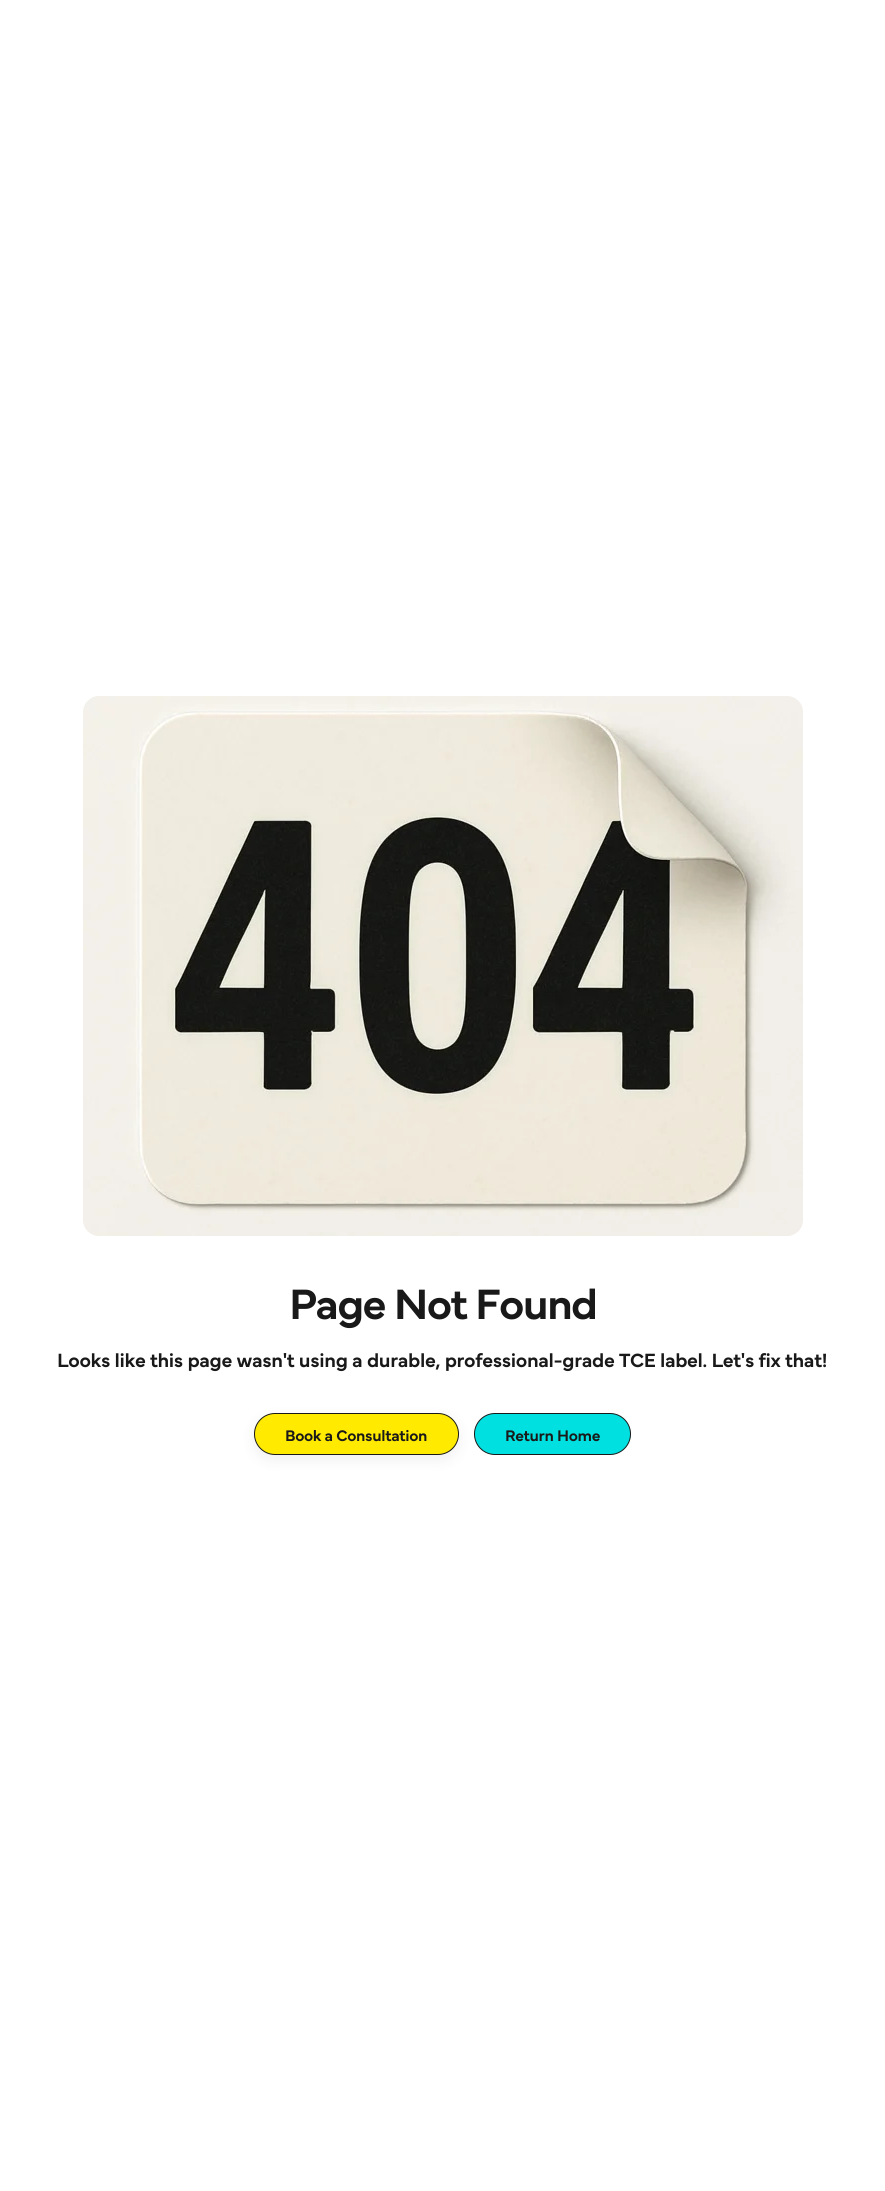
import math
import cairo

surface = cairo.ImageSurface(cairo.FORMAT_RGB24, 885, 2191)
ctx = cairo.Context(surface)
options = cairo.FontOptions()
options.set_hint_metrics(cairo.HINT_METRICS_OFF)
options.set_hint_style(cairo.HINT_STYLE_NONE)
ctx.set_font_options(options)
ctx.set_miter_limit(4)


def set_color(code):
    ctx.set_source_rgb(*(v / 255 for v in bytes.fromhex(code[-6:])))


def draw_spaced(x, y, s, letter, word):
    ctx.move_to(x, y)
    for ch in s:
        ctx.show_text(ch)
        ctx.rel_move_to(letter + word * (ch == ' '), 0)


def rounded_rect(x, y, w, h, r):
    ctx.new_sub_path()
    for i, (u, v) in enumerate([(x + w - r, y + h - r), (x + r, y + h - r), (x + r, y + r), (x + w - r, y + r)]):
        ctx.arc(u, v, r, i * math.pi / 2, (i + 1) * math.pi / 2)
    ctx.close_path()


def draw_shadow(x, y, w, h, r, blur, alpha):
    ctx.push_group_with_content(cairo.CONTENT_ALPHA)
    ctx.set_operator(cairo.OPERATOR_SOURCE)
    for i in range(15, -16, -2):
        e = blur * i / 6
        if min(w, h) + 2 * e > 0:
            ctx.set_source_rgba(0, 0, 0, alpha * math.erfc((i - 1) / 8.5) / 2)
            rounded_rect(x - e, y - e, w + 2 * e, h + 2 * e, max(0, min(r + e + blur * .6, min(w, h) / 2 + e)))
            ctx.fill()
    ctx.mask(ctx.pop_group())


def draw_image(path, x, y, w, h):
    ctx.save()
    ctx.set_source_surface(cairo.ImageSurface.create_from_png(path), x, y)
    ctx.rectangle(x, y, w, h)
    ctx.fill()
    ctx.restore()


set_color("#ffffff")
ctx.paint()
draw_image("assets/img1.png", 83, 696, 720, 540)
ctx.select_font_face("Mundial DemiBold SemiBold")
ctx.set_font_size(44.25)
set_color("#1a1919")
draw_spaced(289, 1319, "Page Not Found", -1.75, 0)
ctx.set_font_size(20)
draw_spaced(57, 1367, "Looks like this page wasn't using a durable, professional-grade TCE label. Let's fix that!", -0.35, 0)
set_color("#000000")
draw_shadow(254, 1418, 205, 42, 21, 7.5, 0.06)
set_color("#ffea00")
rounded_rect(254.5, 1413.5, 204, 41, 20.5)
ctx.fill_preserve()
set_color("#1a1919")
ctx.set_line_width(1)
ctx.stroke()
ctx.set_font_size(16)
draw_spaced(285, 1441, "Book a Consultation", -0.35, 0)
set_color("#00e0e0")
rounded_rect(474.5, 1413.5, 156, 41, 20.5)
ctx.fill_preserve()
set_color("#1a1919")
ctx.stroke()
draw_spaced(505, 1441, "Return Home", -0.35, 0)
surface.write_to_png("output.png")
